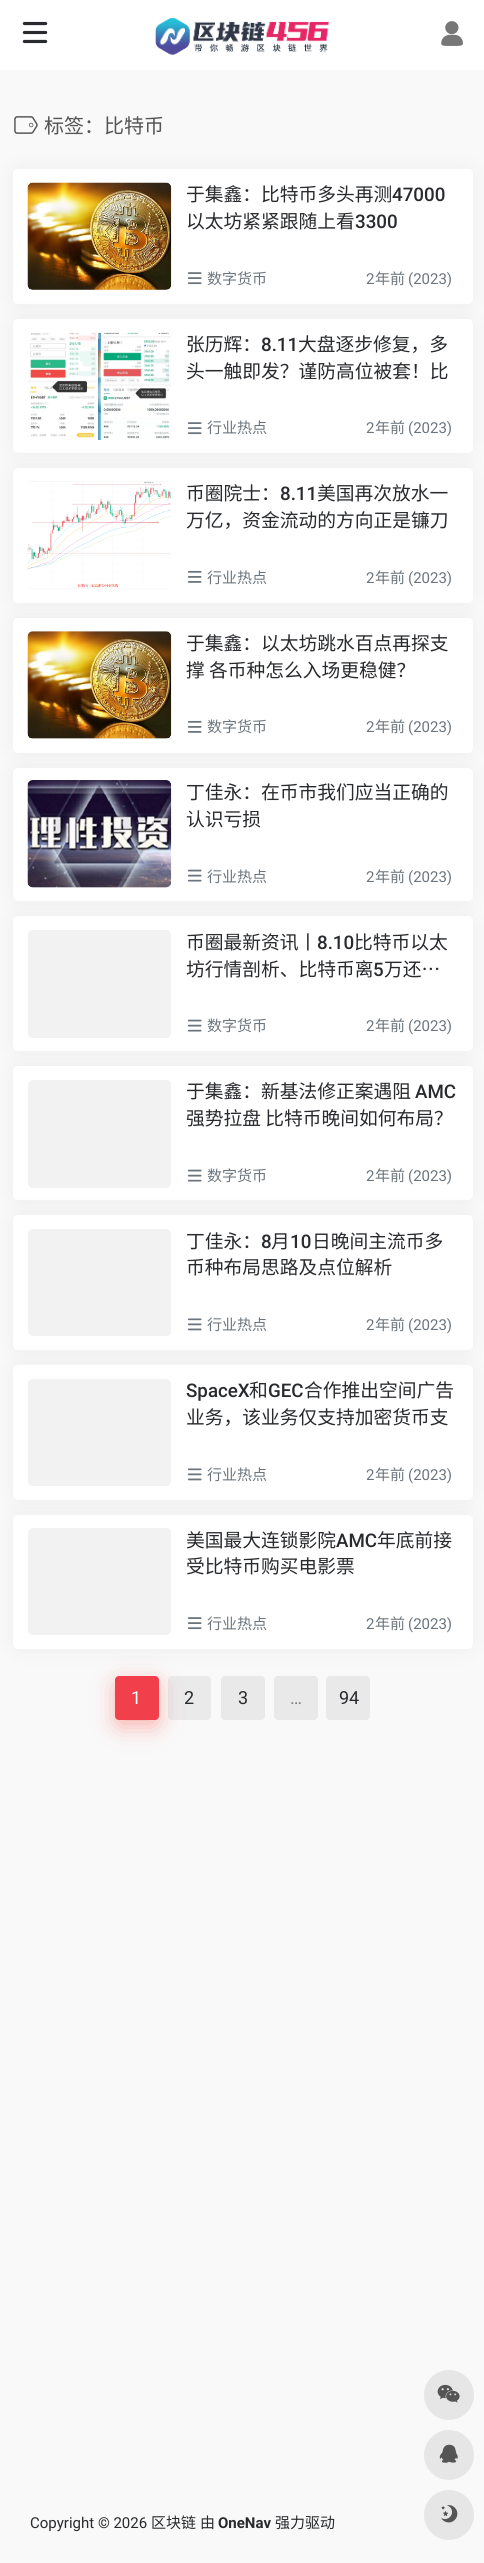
import math
import cairo

surface = cairo.ImageSurface(cairo.FORMAT_RGB24, 484, 2563)
ctx = cairo.Context(surface)
options = cairo.FontOptions()
options.set_hint_metrics(cairo.HINT_METRICS_OFF)
options.set_hint_style(cairo.HINT_STYLE_NONE)
ctx.set_font_options(options)
ctx.set_miter_limit(4)


def set_color(code):
    ctx.set_source_rgb(*(v / 255 for v in bytes.fromhex(code[-6:])))


def draw_text(x, y, s, family, size, color, bold=False, italic=False):
    ctx.select_font_face(family, cairo.FONT_SLANT_ITALIC if italic else cairo.FONT_SLANT_NORMAL, cairo.FONT_WEIGHT_BOLD if bold else cairo.FONT_WEIGHT_NORMAL)
    ctx.set_font_size(size)
    set_color(color)
    ctx.move_to(x, y)
    ctx.show_text(s)


def fill_rect(x, y, w, h, color):
    set_color(color)
    ctx.rectangle(x, y, w, h)
    ctx.fill()


def rounded_rect(x, y, w, h, r):
    ctx.new_sub_path()
    for i, (u, v) in enumerate([(x + w - r, y + h - r), (x + r, y + h - r), (x + r, y + r), (x + w - r, y + r)]):
        ctx.arc(u, v, r, i * math.pi / 2, (i + 1) * math.pi / 2)
    ctx.close_path()


def draw_shadow(x, y, w, h, r, blur, alpha):
    ctx.push_group_with_content(cairo.CONTENT_ALPHA)
    ctx.set_operator(cairo.OPERATOR_SOURCE)
    for i in range(15, -16, -2):
        e = blur * i / 6
        if min(w, h) + 2 * e > 0:
            ctx.set_source_rgba(0, 0, 0, alpha * math.erfc((i - 1) / 8.5) / 2)
            rounded_rect(x - e, y - e, w + 2 * e, h + 2 * e, max(0, min(r + e + blur * .6, min(w, h) / 2 + e)))
            ctx.fill()
    ctx.mask(ctx.pop_group())


def draw_image(path, x, y, w, h):
    ctx.save()
    ctx.set_source_surface(cairo.ImageSurface.create_from_png(path), x, y)
    ctx.rectangle(x, y, w, h)
    ctx.fill()
    ctx.restore()


set_color("#f9f9f9")
ctx.paint()
fill_rect(0, 0, 484, 70, "#ffffff")
draw_image("assets/img1.png", 22, 21, 26, 23)
draw_image("assets/img2.png", 155, 18, 175, 37)
draw_image("assets/img3.png", 441, 21, 22, 25)
draw_image("assets/img4.png", 14, 116, 24, 18)
draw_text(44, 133, "标签：比特币", "Noto Sans CJK SC", 20, "#555555")
set_color("#9e9e9e")
draw_shadow(19, 175, 447, 123, 0, 12.5, 0.2)
set_color("#ffffff")
rounded_rect(13, 169, 460, 135, 5)
ctx.fill()
set_color("#f2f2f2")
rounded_rect(28, 183, 143, 107, 5)
ctx.fill()
draw_image("assets/img5.png", 27, 182, 145, 108)
draw_text(186, 201, "于集鑫：比特币多头再测", "Noto Sans CJK SC", 18.75, "#282a2d")
draw_text(392, 201, "47000", "Roboto Medium", 18.75, "#282a2d")
draw_text(186, 228, "以太坊紧紧跟随上看", "Noto Sans CJK SC", 18.75, "#282a2d")
draw_text(355, 228, "3300", "Roboto Medium", 18.75, "#282a2d")
draw_image("assets/img6.png", 187, 272, 15, 13)
draw_text(207, 284, "数字货币", "Noto Sans CJK SC", 15, "#6c757d")
draw_text(366, 284, "2", "Roboto", 15, "#6c757d")
draw_text(375, 284, "年前", "Noto Sans CJK SC", 15, "#6c757d")
draw_text(408, 284, "(2023)", "Roboto", 15, "#6c757d")
set_color("#9e9e9e")
draw_shadow(19, 325, 447, 121, 0, 12.5, 0.2)
set_color("#ffffff")
rounded_rect(13, 319, 460, 134, 5)
ctx.fill()
set_color("#f2f2f2")
rounded_rect(28, 333, 143, 107, 5)
ctx.fill()
draw_image("assets/img7.png", 28, 332, 143, 108)
draw_text(186, 351, "张历辉：", "Noto Sans CJK SC", 18.75, "#282a2d")
draw_text(261, 351, "8.11", "Roboto Medium", 18.75, "#282a2d")
draw_text(298, 351, "大盘逐步修复，多", "Noto Sans CJK SC", 18.75, "#282a2d")
draw_text(186, 378, "头一触即发？谨防高位被套！比", "Noto Sans CJK SC", 18.75, "#282a2d")
draw_image("assets/img6.png", 187, 422, 15, 13)
draw_text(207, 433, "行业热点", "Noto Sans CJK SC", 15, "#6c757d")
draw_text(366, 433, "2", "Roboto", 15, "#6c757d")
draw_text(375, 433, "年前", "Noto Sans CJK SC", 15, "#6c757d")
draw_text(408, 433, "(2023)", "Roboto", 15, "#6c757d")
set_color("#9e9e9e")
draw_shadow(19, 474, 447, 122, 0, 12.5, 0.2)
set_color("#ffffff")
rounded_rect(13, 468, 460, 135, 5)
ctx.fill()
set_color("#f2f2f2")
rounded_rect(28, 481, 143, 108, 5)
ctx.fill()
draw_image("assets/img8.png", 27, 481, 145, 108)
draw_text(186, 500, "币圈院士：", "Noto Sans CJK SC", 18.75, "#282a2d")
draw_text(280, 500, "8.11", "Roboto Medium", 18.75, "#282a2d")
draw_text(317, 500, "美国再次放水一", "Noto Sans CJK SC", 18.75, "#282a2d")
draw_text(186, 527, "万亿，资金流动的方向正是镰刀", "Noto Sans CJK SC", 18.75, "#282a2d")
draw_image("assets/img9.png", 187, 570, 15, 13)
draw_text(207, 583, "行业热点", "Noto Sans CJK SC", 15, "#6c757d")
draw_text(366, 583, "2", "Roboto", 15, "#6c757d")
draw_text(375, 583, "年前", "Noto Sans CJK SC", 15, "#6c757d")
draw_text(408, 583, "(2023)", "Roboto", 15, "#6c757d")
set_color("#9e9e9e")
draw_shadow(19, 624, 447, 122, 0, 12.5, 0.2)
set_color("#ffffff")
rounded_rect(13, 618, 460, 135, 5)
ctx.fill()
set_color("#f2f2f2")
rounded_rect(28, 631, 143, 108, 5)
ctx.fill()
draw_image("assets/img10.png", 27, 631, 145, 108)
draw_text(186, 650, "于集鑫：以太坊跳水百点再探支", "Noto Sans CJK SC", 18.75, "#282a2d")
draw_text(186, 677, "撑 各币种怎么入场更稳健？", "Noto Sans CJK SC", 18.75, "#282a2d")
draw_image("assets/img9.png", 187, 720, 15, 13)
draw_text(207, 732, "数字货币", "Noto Sans CJK SC", 15, "#6c757d")
draw_text(366, 732, "2", "Roboto", 15, "#6c757d")
draw_text(375, 732, "年前", "Noto Sans CJK SC", 15, "#6c757d")
draw_text(408, 732, "(2023)", "Roboto", 15, "#6c757d")
set_color("#9e9e9e")
draw_shadow(19, 774, 447, 121, 0, 12.5, 0.2)
set_color("#ffffff")
rounded_rect(13, 768, 460, 133, 5)
ctx.fill()
set_color("#f2f2f2")
rounded_rect(28, 780, 143, 108, 5)
ctx.fill()
draw_image("assets/img11.png", 27, 780, 145, 108)
draw_text(186, 799, "丁佳永：在币市我们应当正确的", "Noto Sans CJK SC", 18.75, "#282a2d")
draw_text(186, 826, "认识亏损", "Noto Sans CJK SC", 18.75, "#282a2d")
draw_image("assets/img12.png", 187, 869, 15, 13)
draw_text(207, 882, "行业热点", "Noto Sans CJK SC", 15, "#6c757d")
draw_text(366, 882, "2", "Roboto", 15, "#6c757d")
draw_text(375, 882, "年前", "Noto Sans CJK SC", 15, "#6c757d")
draw_text(408, 882, "(2023)", "Roboto", 15, "#6c757d")
set_color("#9e9e9e")
draw_shadow(19, 923, 447, 122, 0, 12.5, 0.2)
set_color("#ffffff")
rounded_rect(13, 916, 460, 135, 5)
ctx.fill()
set_color("#f2f2f2")
rounded_rect(28, 930, 143, 108, 5)
ctx.fill()
draw_text(186, 949, "币圈最新资讯丨", "Noto Sans CJK SC", 18.75, "#282a2d")
draw_text(317, 949, "8.10", "Roboto Medium", 18.75, "#282a2d")
draw_text(354, 949, "比特币以太", "Noto Sans CJK SC", 18.75, "#282a2d")
draw_text(186, 976, "坊行情剖析、比特币离", "Noto Sans CJK SC", 18.75, "#282a2d")
draw_text(373, 976, "5", "Roboto Medium", 18.75, "#282a2d")
draw_text(384, 976, "万还…", "Noto Sans CJK SC", 18.75, "#282a2d")
draw_image("assets/img12.png", 187, 1019, 15, 13)
draw_text(207, 1031, "数字货币", "Noto Sans CJK SC", 15, "#6c757d")
draw_text(366, 1031, "2", "Roboto", 15, "#6c757d")
draw_text(375, 1031, "年前", "Noto Sans CJK SC", 15, "#6c757d")
draw_text(408, 1031, "(2023)", "Roboto", 15, "#6c757d")
set_color("#9e9e9e")
draw_shadow(19, 1073, 447, 121, 0, 12.5, 0.2)
set_color("#ffffff")
rounded_rect(13, 1066, 460, 134, 5)
ctx.fill()
set_color("#f2f2f2")
rounded_rect(28, 1080, 143, 108, 5)
ctx.fill()
draw_text(186, 1098, "于集鑫：新基法修正案遇阻", "Noto Sans CJK SC", 18.75, "#282a2d")
draw_text(415, 1098, "AMC", "Roboto Medium", 18.75, "#282a2d")
draw_text(186, 1125, "强势拉盘 比特币晚间如何布局？", "Noto Sans CJK SC", 18.75, "#282a2d")
draw_image("assets/img12.png", 187, 1169, 15, 13)
draw_text(207, 1181, "数字货币", "Noto Sans CJK SC", 15, "#6c757d")
draw_text(366, 1181, "2", "Roboto", 15, "#6c757d")
draw_text(375, 1181, "年前", "Noto Sans CJK SC", 15, "#6c757d")
draw_text(408, 1181, "(2023)", "Roboto", 15, "#6c757d")
set_color("#9e9e9e")
draw_shadow(19, 1221, 447, 123, 0, 12.5, 0.2)
set_color("#ffffff")
rounded_rect(13, 1215, 460, 135, 5)
ctx.fill()
set_color("#f2f2f2")
rounded_rect(28, 1229, 143, 107, 5)
ctx.fill()
draw_text(186, 1248, "丁佳永：", "Noto Sans CJK SC", 18.75, "#282a2d")
draw_text(261, 1248, "8", "Roboto Medium", 18.75, "#282a2d")
draw_text(271, 1248, "月", "Noto Sans CJK SC", 18.75, "#282a2d")
draw_text(290, 1248, "10", "Roboto Medium", 18.75, "#282a2d")
draw_text(312, 1248, "日晚间主流币多", "Noto Sans CJK SC", 18.75, "#282a2d")
draw_text(186, 1274, "币种布局思路及点位解析", "Noto Sans CJK SC", 18.75, "#282a2d")
draw_image("assets/img13.png", 187, 1318, 15, 13)
draw_text(207, 1330, "行业热点", "Noto Sans CJK SC", 15, "#6c757d")
draw_text(366, 1330, "2", "Roboto", 15, "#6c757d")
draw_text(375, 1330, "年前", "Noto Sans CJK SC", 15, "#6c757d")
draw_text(408, 1330, "(2023)", "Roboto", 15, "#6c757d")
set_color("#9e9e9e")
draw_shadow(19, 1371, 447, 123, 0, 12.5, 0.2)
set_color("#ffffff")
rounded_rect(13, 1365, 460, 135, 5)
ctx.fill()
set_color("#f2f2f2")
rounded_rect(28, 1379, 143, 107, 5)
ctx.fill()
draw_text(186, 1397, "SpaceX", "Roboto Medium", 18.75, "#282a2d")
draw_text(249, 1397, "和", "Noto Sans CJK SC", 18.75, "#282a2d")
draw_text(268, 1397, "GEC", "Roboto Medium", 18.75, "#282a2d")
draw_text(304, 1397, "合作推出空间广告", "Noto Sans CJK SC", 18.75, "#282a2d")
draw_text(186, 1424, "业务，该业务仅支持加密货币支", "Noto Sans CJK SC", 18.75, "#282a2d")
draw_image("assets/img13.png", 187, 1468, 15, 13)
draw_text(207, 1480, "行业热点", "Noto Sans CJK SC", 15, "#6c757d")
draw_text(366, 1480, "2", "Roboto", 15, "#6c757d")
draw_text(375, 1480, "年前", "Noto Sans CJK SC", 15, "#6c757d")
draw_text(408, 1480, "(2023)", "Roboto", 15, "#6c757d")
set_color("#9e9e9e")
draw_shadow(19, 1521, 447, 122, 0, 12.5, 0.2)
set_color("#ffffff")
rounded_rect(13, 1515, 460, 134, 5)
ctx.fill()
set_color("#f2f2f2")
rounded_rect(28, 1528, 143, 107, 5)
ctx.fill()
draw_text(186, 1547, "美国最大连锁影院", "Noto Sans CJK SC", 18.75, "#282a2d")
draw_text(336, 1547, "AMC", "Roboto Medium", 18.75, "#282a2d")
draw_text(377, 1547, "年底前接", "Noto Sans CJK SC", 18.75, "#282a2d")
draw_text(186, 1573, "受比特币购买电影票", "Noto Sans CJK SC", 18.75, "#282a2d")
draw_image("assets/img6.png", 187, 1617, 15, 13)
draw_text(207, 1629, "行业热点", "Noto Sans CJK SC", 15, "#6c757d")
draw_text(366, 1629, "2", "Roboto", 15, "#6c757d")
draw_text(375, 1629, "年前", "Noto Sans CJK SC", 15, "#6c757d")
draw_text(408, 1629, "(2023)", "Roboto", 15, "#6c757d")
set_color("#f9645a")
draw_shadow(119, 1686, 36, 37, 0, 12.5, 0.6)
set_color("#f1404b")
rounded_rect(115, 1676, 44, 44, 4)
ctx.fill()
draw_text(131, 1704, "1", "Roboto", 18, "#ffffff")
ctx.set_source_rgba(0.588, 0.588, 0.588, 0.16)
rounded_rect(168, 1676, 43, 44, 4)
ctx.fill()
draw_text(184, 1704, "2", "Roboto", 18, "#282a2d")
set_color("#e9e9e9")
rounded_rect(221, 1676, 44, 44, 4)
ctx.fill()
draw_text(238, 1704, "3", "Roboto", 18, "#282a2d")
set_color("#e9e9e9")
rounded_rect(274, 1676, 44, 44, 4)
ctx.fill()
draw_text(290, 1704, "…", "Roboto", 18, "#828282")
set_color("#e9e9e9")
rounded_rect(326, 1676, 44, 44, 4)
ctx.fill()
draw_text(339, 1704, "94", "Roboto", 18, "#282a2d")
draw_text(30, 2528, "Copyright © 2026", "Roboto", 15, "#282a2d")
draw_text(151, 2528, "区块链", "Noto Sans CJK SC", 15, "#282a2d")
draw_text(200, 2528, "由", "Noto Sans CJK SC", 15, "#282a2d")
draw_text(218, 2528, "OneNav", "Roboto", 15, "#282a2d", bold=True)
draw_text(275, 2528, "强力驱动", "Noto Sans CJK SC", 15, "#282a2d")
set_color("#e6e6e6")
ctx.new_path()
ctx.arc(449, 2395, 25, 0, 2 * math.pi)
ctx.fill()
draw_image("assets/img14.png", 437, 2384, 23, 19)
ctx.arc(449, 2455, 25, 0, 2 * math.pi)
ctx.fill()
draw_image("assets/img15.png", 439, 2444, 19, 19)
ctx.arc(449, 2515, 25, 0, 2 * math.pi)
ctx.fill()
draw_image("assets/img16.png", 441, 2505, 17, 18)
surface.write_to_png("output.png")
